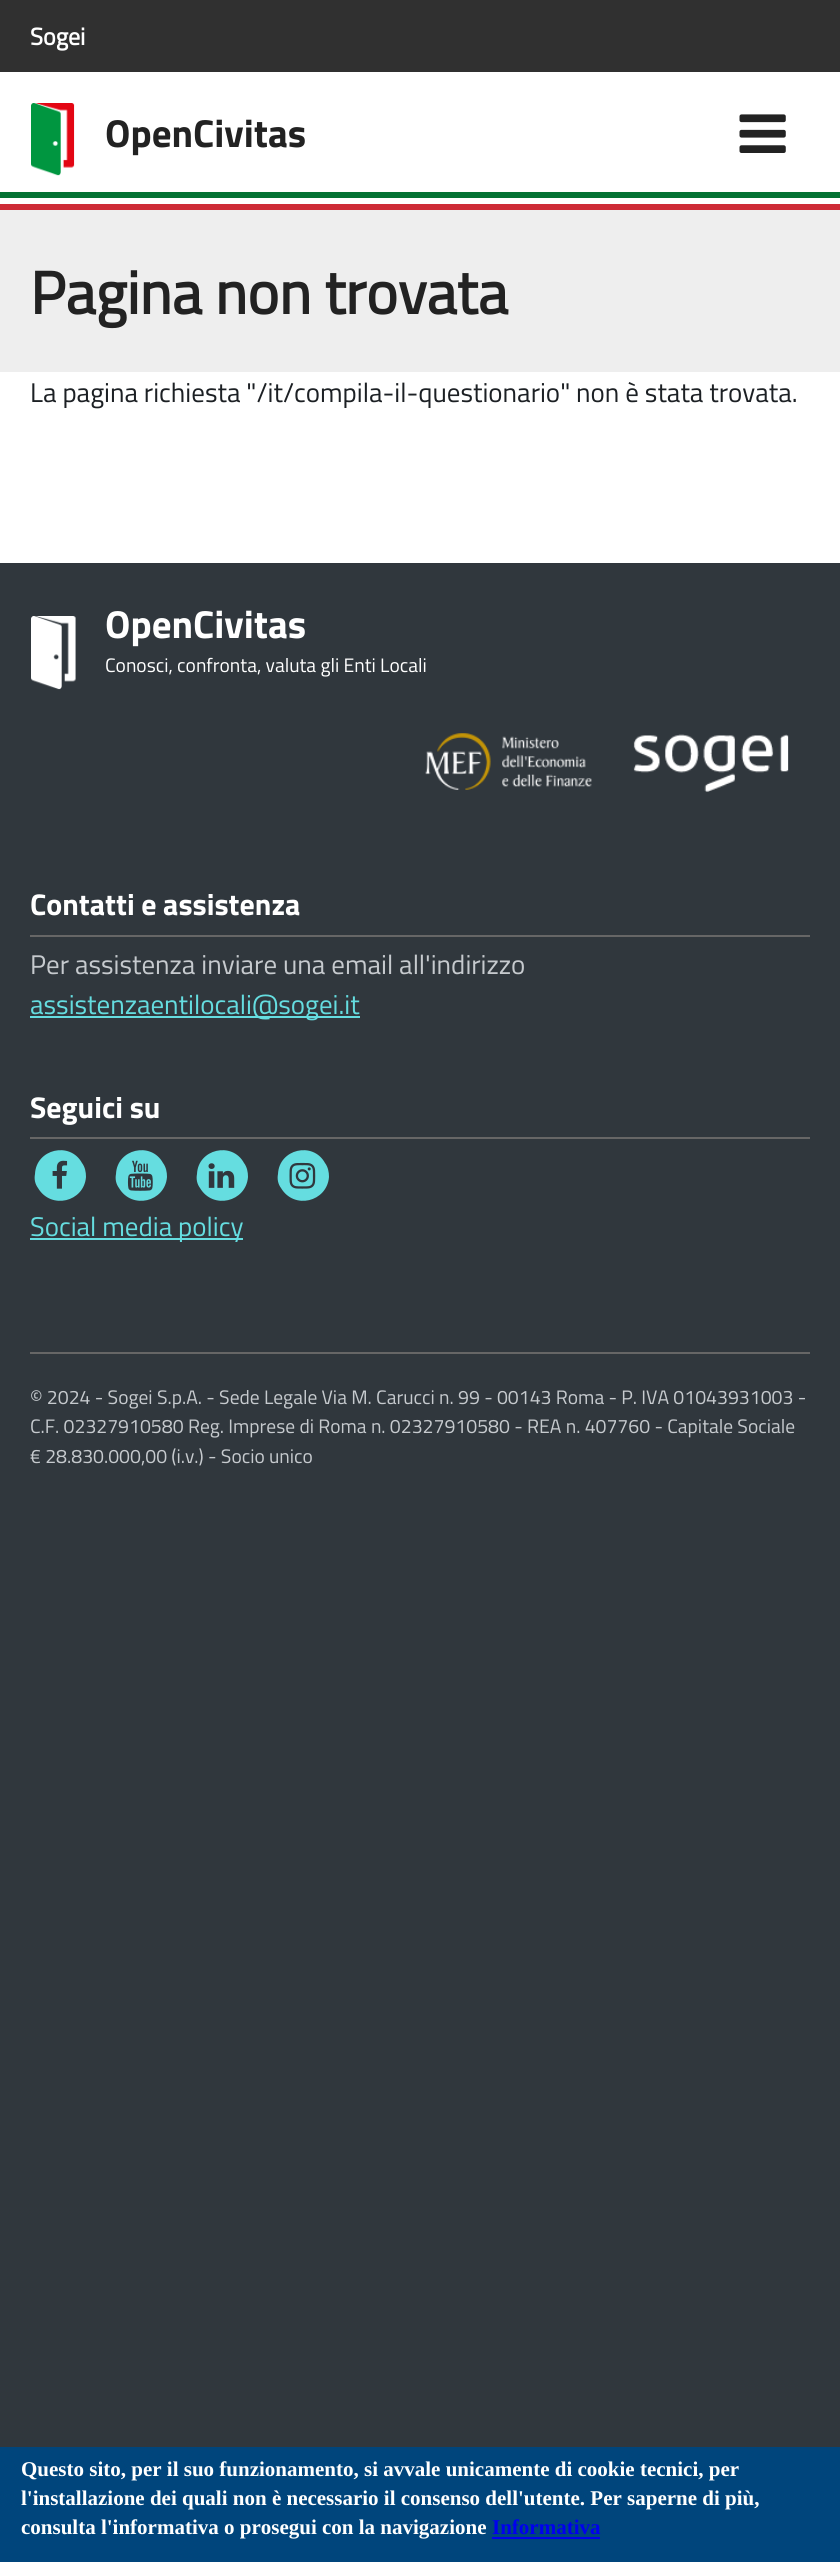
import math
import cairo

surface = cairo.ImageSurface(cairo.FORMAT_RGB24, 840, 2562)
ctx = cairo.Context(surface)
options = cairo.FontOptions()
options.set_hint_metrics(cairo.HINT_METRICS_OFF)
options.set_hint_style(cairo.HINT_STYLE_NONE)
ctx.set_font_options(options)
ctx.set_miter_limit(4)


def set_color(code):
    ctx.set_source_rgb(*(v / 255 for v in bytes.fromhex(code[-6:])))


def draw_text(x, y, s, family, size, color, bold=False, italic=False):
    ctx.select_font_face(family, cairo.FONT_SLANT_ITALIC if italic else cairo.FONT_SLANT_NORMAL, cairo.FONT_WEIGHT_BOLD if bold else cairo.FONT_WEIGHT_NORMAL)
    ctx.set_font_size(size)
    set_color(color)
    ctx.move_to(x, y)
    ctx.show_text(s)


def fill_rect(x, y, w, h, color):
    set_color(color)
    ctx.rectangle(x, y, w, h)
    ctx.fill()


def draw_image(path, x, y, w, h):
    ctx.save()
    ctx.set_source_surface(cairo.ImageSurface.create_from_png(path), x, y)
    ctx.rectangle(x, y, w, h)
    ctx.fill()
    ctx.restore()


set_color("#30373d")
ctx.paint()
fill_rect(0, 72, 840, 491, "#ffffff")
fill_rect(0, 0, 840, 72, "#303030")
draw_text(30, 45, "Sogei", "Titillium Web", 24, "#ffffff", bold=True)
draw_image("assets/img1.png", 31, 103, 44, 73)
draw_text(105, 147, "OpenCivitas", "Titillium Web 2", 39, "#222222", bold=True)
draw_image("assets/img2.png", 739, 114, 47, 39)
fill_rect(0, 192, 840, 6, "#047233")
fill_rect(0, 204, 840, 6, "#ce2b37")
fill_rect(0, 210, 840, 162, "#eeeeee")
draw_text(30, 314, "Pagina non trovata", "Titillium Web", 60, "#222222", bold=True)
draw_text(30, 402, "La pagina richiesta \"/it/compila-il-questionario\" non è stata trovata.", "Titillium Web", 27, "#1c2024")
draw_image("assets/img3.png", 31, 616, 45, 74)
draw_text(105, 638, "OpenCivitas", "Titillium Web 2", 39, "#ffffff", bold=True)
draw_text(105, 672, "Conosci, confronta, valuta gli Enti Locali", "Titillium Web", 19.5, "#ffffff")
draw_image("assets/img4.png", 425, 733, 167, 57)
draw_image("assets/img5.png", 633, 734, 156, 58)
fill_rect(30, 935, 780, 2, "#666666")
draw_text(30, 915, "Contatti e assistenza", "Titillium Web 2", 30, "#ffffff", bold=True)
draw_text(30, 974, "Per assistenza inviare una email all'indirizzo", "Titillium Web", 27, "#c6cace")
fill_rect(30, 1016, 330, 2, "#65dde0")
draw_text(30, 1014, "assistenzaentilocali@sogei.it", "Titillium Web", 27, "#65dde0")
fill_rect(30, 1137, 780, 2, "#666666")
draw_text(30, 1118, "Seguici su", "Titillium Web 2", 30, "#ffffff", bold=True)
set_color("#65dde0")
ctx.new_path()
ctx.move_to(82, 1163)
ctx.curve_to(85, 1167, 86, 1172, 86, 1177)
ctx.curve_to(84, 1202, 51, 1210, 38, 1188)
ctx.curve_to(35, 1184, 34, 1179, 35, 1174)
ctx.curve_to(36, 1149, 70, 1141, 82, 1163)
ctx.close_path()
ctx.fill()
draw_image("assets/img6.png", 52, 1160, 16, 29)
ctx.new_path()
ctx.move_to(163, 1163)
ctx.curve_to(166, 1167, 167, 1172, 167, 1177)
ctx.curve_to(165, 1202, 132, 1210, 119, 1188)
ctx.curve_to(116, 1184, 115, 1179, 116, 1174)
ctx.curve_to(117, 1149, 151, 1141, 163, 1163)
ctx.close_path()
ctx.fill()
draw_image("assets/img7.png", 127, 1160, 26, 31)
ctx.new_path()
ctx.move_to(244, 1163)
ctx.curve_to(247, 1167, 248, 1172, 248, 1177)
ctx.curve_to(246, 1202, 213, 1210, 200, 1188)
ctx.curve_to(197, 1184, 196, 1179, 197, 1174)
ctx.curve_to(198, 1149, 232, 1141, 244, 1163)
ctx.close_path()
ctx.fill()
draw_image("assets/img8.png", 208, 1163, 27, 25)
ctx.new_path()
ctx.move_to(325, 1163)
ctx.curve_to(328, 1167, 329, 1172, 329, 1177)
ctx.curve_to(327, 1202, 294, 1210, 281, 1188)
ctx.curve_to(278, 1184, 277, 1179, 278, 1174)
ctx.curve_to(279, 1149, 313, 1141, 325, 1163)
ctx.close_path()
ctx.fill()
draw_image("assets/img9.png", 289, 1162, 27, 27)
fill_rect(30, 1238, 213, 2, "#65dde0")
draw_text(30, 1236, "Social media policy", "Titillium Web", 27, "#65dde0")
fill_rect(30, 1352, 780, 2, "#666666")
draw_text(30, 1404, "© 2024 - Sogei S.p.A. - Sede Legale Via M. Carucci n. 99 - 00143 Roma - P. IVA 01043931003 -", "Titillium Web", 19.5, "#c6cace")
draw_text(30, 1433, "C.F. 02327910580 Reg. Imprese di Roma n. 02327910580 - REA n. 407760 - Capitale Sociale", "Titillium Web", 19.5, "#c6cace")
draw_text(30, 1463, "€ 28.830.000,00 (i.v.) - Socio unico", "Titillium Web", 19.5, "#c6cace")
fill_rect(0, 2447, 840, 115, "#00457c")
draw_text(21, 2476, "Questo sito, per il suo funzionamento, si avvale unicamente di cookie tecnici, per", "Liberation Serif", 21, "#ffffff", bold=True)
draw_text(21, 2505, "l'installazione dei quali non è necessario il consenso dell'utente. Per saperne di più,", "Liberation Serif", 21, "#ffffff", bold=True)
draw_text(21, 2534, "consulta l'informativa o prosegui con la navigazione", "Liberation Serif", 21, "#ffffff", bold=True)
draw_text(492, 2534, "Informativa", "Liberation Serif", 21, "#0000ee", bold=True)
fill_rect(492, 2537, 108, 2, "#0000ee")
surface.write_to_png("output.png")
